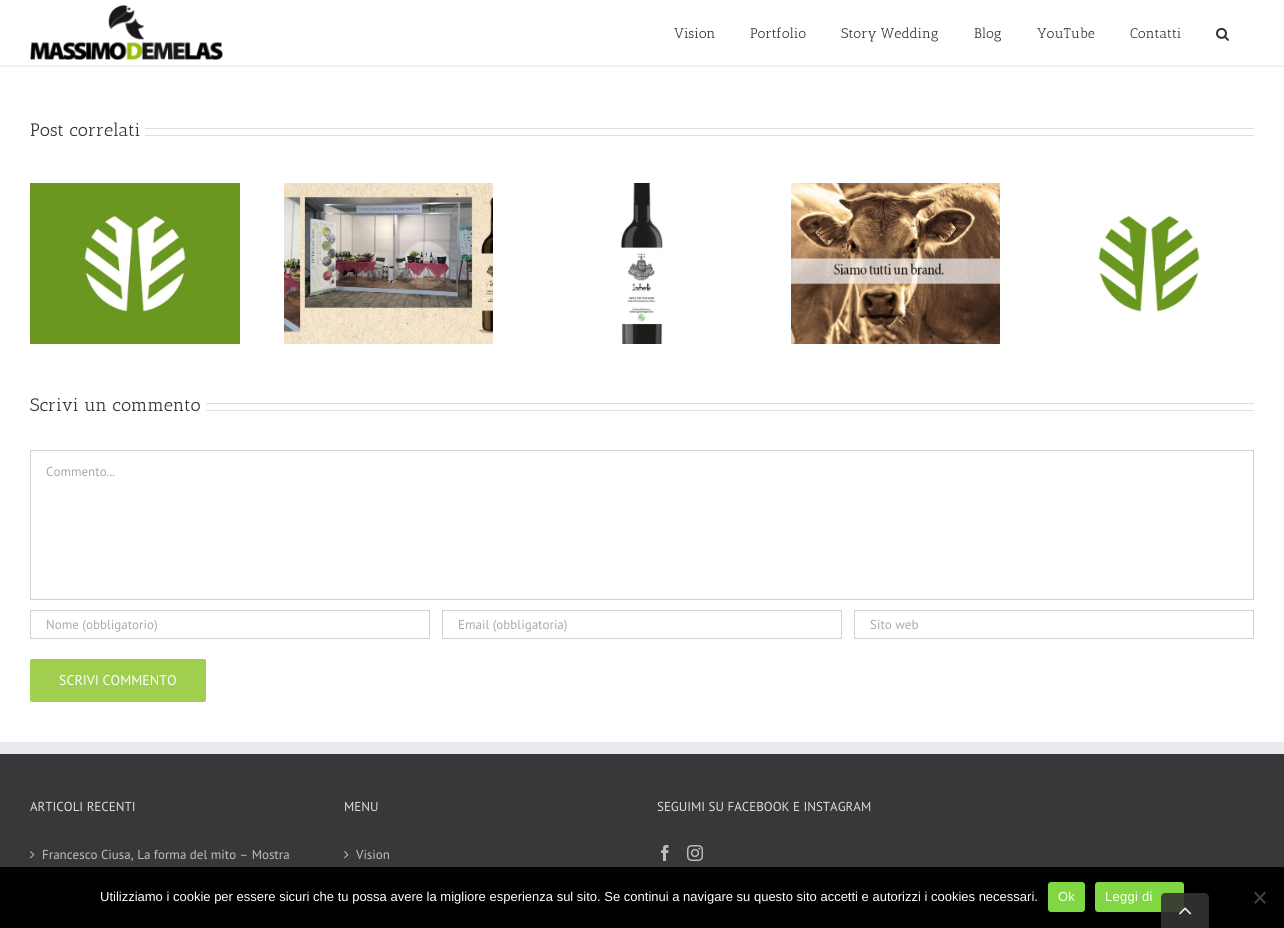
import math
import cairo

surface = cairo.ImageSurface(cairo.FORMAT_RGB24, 1284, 928)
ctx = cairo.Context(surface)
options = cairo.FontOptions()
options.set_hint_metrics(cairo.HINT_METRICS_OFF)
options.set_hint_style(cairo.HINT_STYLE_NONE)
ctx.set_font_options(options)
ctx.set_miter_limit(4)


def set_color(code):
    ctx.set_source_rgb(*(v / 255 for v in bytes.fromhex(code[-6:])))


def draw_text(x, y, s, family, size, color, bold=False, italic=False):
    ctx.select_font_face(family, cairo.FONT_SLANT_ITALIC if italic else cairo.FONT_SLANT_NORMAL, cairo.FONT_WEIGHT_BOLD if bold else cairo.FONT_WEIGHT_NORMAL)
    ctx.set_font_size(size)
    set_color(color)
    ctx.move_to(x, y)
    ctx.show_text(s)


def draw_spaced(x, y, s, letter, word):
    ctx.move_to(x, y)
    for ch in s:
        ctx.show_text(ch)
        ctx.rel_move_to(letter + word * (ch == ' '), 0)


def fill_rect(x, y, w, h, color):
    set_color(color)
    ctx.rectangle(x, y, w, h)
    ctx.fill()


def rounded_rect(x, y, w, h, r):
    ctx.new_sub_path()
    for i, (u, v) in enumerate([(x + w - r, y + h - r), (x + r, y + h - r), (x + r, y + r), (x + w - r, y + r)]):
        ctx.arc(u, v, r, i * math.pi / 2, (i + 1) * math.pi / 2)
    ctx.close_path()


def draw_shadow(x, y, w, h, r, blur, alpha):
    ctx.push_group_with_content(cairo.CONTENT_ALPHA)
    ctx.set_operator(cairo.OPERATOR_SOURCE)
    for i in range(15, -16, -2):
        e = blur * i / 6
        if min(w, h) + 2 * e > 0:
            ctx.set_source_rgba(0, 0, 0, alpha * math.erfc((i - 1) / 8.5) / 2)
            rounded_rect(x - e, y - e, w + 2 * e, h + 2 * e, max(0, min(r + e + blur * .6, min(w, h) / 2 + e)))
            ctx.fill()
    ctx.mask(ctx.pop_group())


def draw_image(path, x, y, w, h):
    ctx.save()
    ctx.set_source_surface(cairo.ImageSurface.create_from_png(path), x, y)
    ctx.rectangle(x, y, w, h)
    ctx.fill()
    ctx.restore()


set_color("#ffffff")
ctx.paint()
set_color("#000000")
draw_shadow(0, 1, 1284, 65, 0, 1.5, 0.12)
fill_rect(0, 0, 1284, 65, "#ffffff")
draw_image("assets/img1.png", 30, 5, 193, 55)
draw_text(674, 38, "Vision", "Antic Slab", 14, "#333333")
draw_text(750, 38, "Portfolio", "Antic Slab", 14, "#333333")
draw_text(841, 38, "Story Wedding", "Antic Slab", 14, "#333333")
draw_text(974, 38, "Blog", "Antic Slab", 14, "#333333")
draw_text(1037, 38, "YouTube", "Antic Slab", 14, "#333333")
draw_text(1130, 38, "Contatti", "Antic Slab", 14, "#333333")
draw_image("assets/img2.png", 1216, 27, 13, 14)
draw_text(30, 136, "Post correlati", "Antic Slab", 18, "#333333")
fill_rect(145, 128, 1109, 1, "#e0dede")
fill_rect(145, 135, 1109, 1, "#e0dede")
draw_image("assets/img3.png", 30, 183, 210, 161)
draw_image("assets/img4.png", 284, 183, 209, 161)
draw_image("assets/img5.png", 621, 183, 42, 161)
draw_image("assets/img6.png", 791, 183, 209, 161)
draw_image("assets/img7.png", 1098, 214, 104, 98)
draw_text(30, 411, "Scrivi un commento", "Antic Slab", 18, "#333333")
fill_rect(206, 403, 1048, 1, "#e0dede")
fill_rect(206, 410, 1048, 1, "#e0dede")
ctx.rectangle(30.5, 450.5, 1223, 149)
set_color("#d2d2d2")
ctx.set_line_width(1)
ctx.stroke()
draw_text(46, 476, "Commento...", "PT Sans", 13, "#aaa9a9")
ctx.rectangle(30.5, 610.5, 399, 28)
set_color("#d2d2d2")
ctx.stroke()
draw_text(46, 629, "Nome (obbligatorio)", "PT Sans", 13, "#aaa9a9")
ctx.rectangle(442.5, 610.5, 399, 28)
set_color("#d2d2d2")
ctx.stroke()
draw_text(458, 629, "Email (obbligatoria)", "PT Sans", 13, "#aaa9a9")
ctx.rectangle(854.5, 610.5, 399, 28)
set_color("#d2d2d2")
ctx.stroke()
draw_text(870, 629, "Sito web", "PT Sans", 13, "#aaa9a9")
set_color("#a0ce4e")
rounded_rect(30, 659, 176, 43, 2)
ctx.fill()
draw_text(59, 685, "SCRIVI COMMENTO", "PT Sans", 14, "#ffffff")
fill_rect(0, 754, 1284, 113, "#363839")
fill_rect(0, 742, 1284, 12, "#e9eaee")
draw_text(30, 811, "ARTICOLI RECENTI", "PT Sans", 13, "#dddddd")
draw_image("assets/img8.png", 30, 851, 5, 8)
draw_text(42, 859, "Francesco Ciusa, La forma del mito – Mostra", "PT Sans", 13, "#bfbfbf")
draw_text(344, 811, "MENU", "PT Sans", 13, "#dddddd")
draw_image("assets/img8.png", 344, 851, 5, 8)
draw_text(356, 859, "Vision", "PT Sans", 13, "#bfbfbf")
draw_text(657, 811, "SEGUIMI SU FACEBOOK E INSTAGRAM", "PT Sans", 13, "#dddddd")
draw_image("assets/img9.png", 661, 845, 8, 16)
draw_image("assets/img10.png", 687, 845, 16, 16)
fill_rect(0, 867, 1284, 61, "#000000")
draw_text(100, 901, "Utilizziamo i cookie per essere sicuri che tu possa avere la migliore esperienza sul sito. Se continui a navigare su questo sito accetti e autorizzi i cookies necessari.", "Liberation Sans", 13, "#ffffff")
set_color("#81d742")
rounded_rect(1048, 882, 37, 30, 3)
ctx.fill()
set_color("#ffffff")
draw_spaced(1058, 901, "Ok", 0.25, 0)
set_color("#81d742")
rounded_rect(1095, 882, 89, 30, 3)
ctx.fill()
set_color("#ffffff")
draw_spaced(1105, 901, "Leggi di", 0.25, 0)
set_color("#404040")
ctx.new_path()
ctx.move_to(1264.5, 891.5)
ctx.line_to(1266, 893)
ctx.line_to(1255.5, 904)
ctx.line_to(1254, 902.5)
ctx.close_path()
ctx.fill()
ctx.new_path()
ctx.move_to(1254, 893)
ctx.line_to(1255.5, 891.5)
ctx.line_to(1266, 902.5)
ctx.line_to(1264.5, 904)
ctx.close_path()
ctx.fill()
ctx.set_source_rgba(0.2, 0.2, 0.2, 0.9)
ctx.new_path()
ctx.move_to(1165, 893)
ctx.line_to(1205, 893)
ctx.curve_to(1207, 893, 1209, 895, 1209, 897)
ctx.line_to(1209, 928)
ctx.line_to(1161, 928)
ctx.line_to(1161, 897)
ctx.curve_to(1161, 895, 1163, 893, 1165, 893)
ctx.close_path()
ctx.fill()
draw_image("assets/img11.png", 1179, 907, 13, 8)
surface.write_to_png("output.png")
